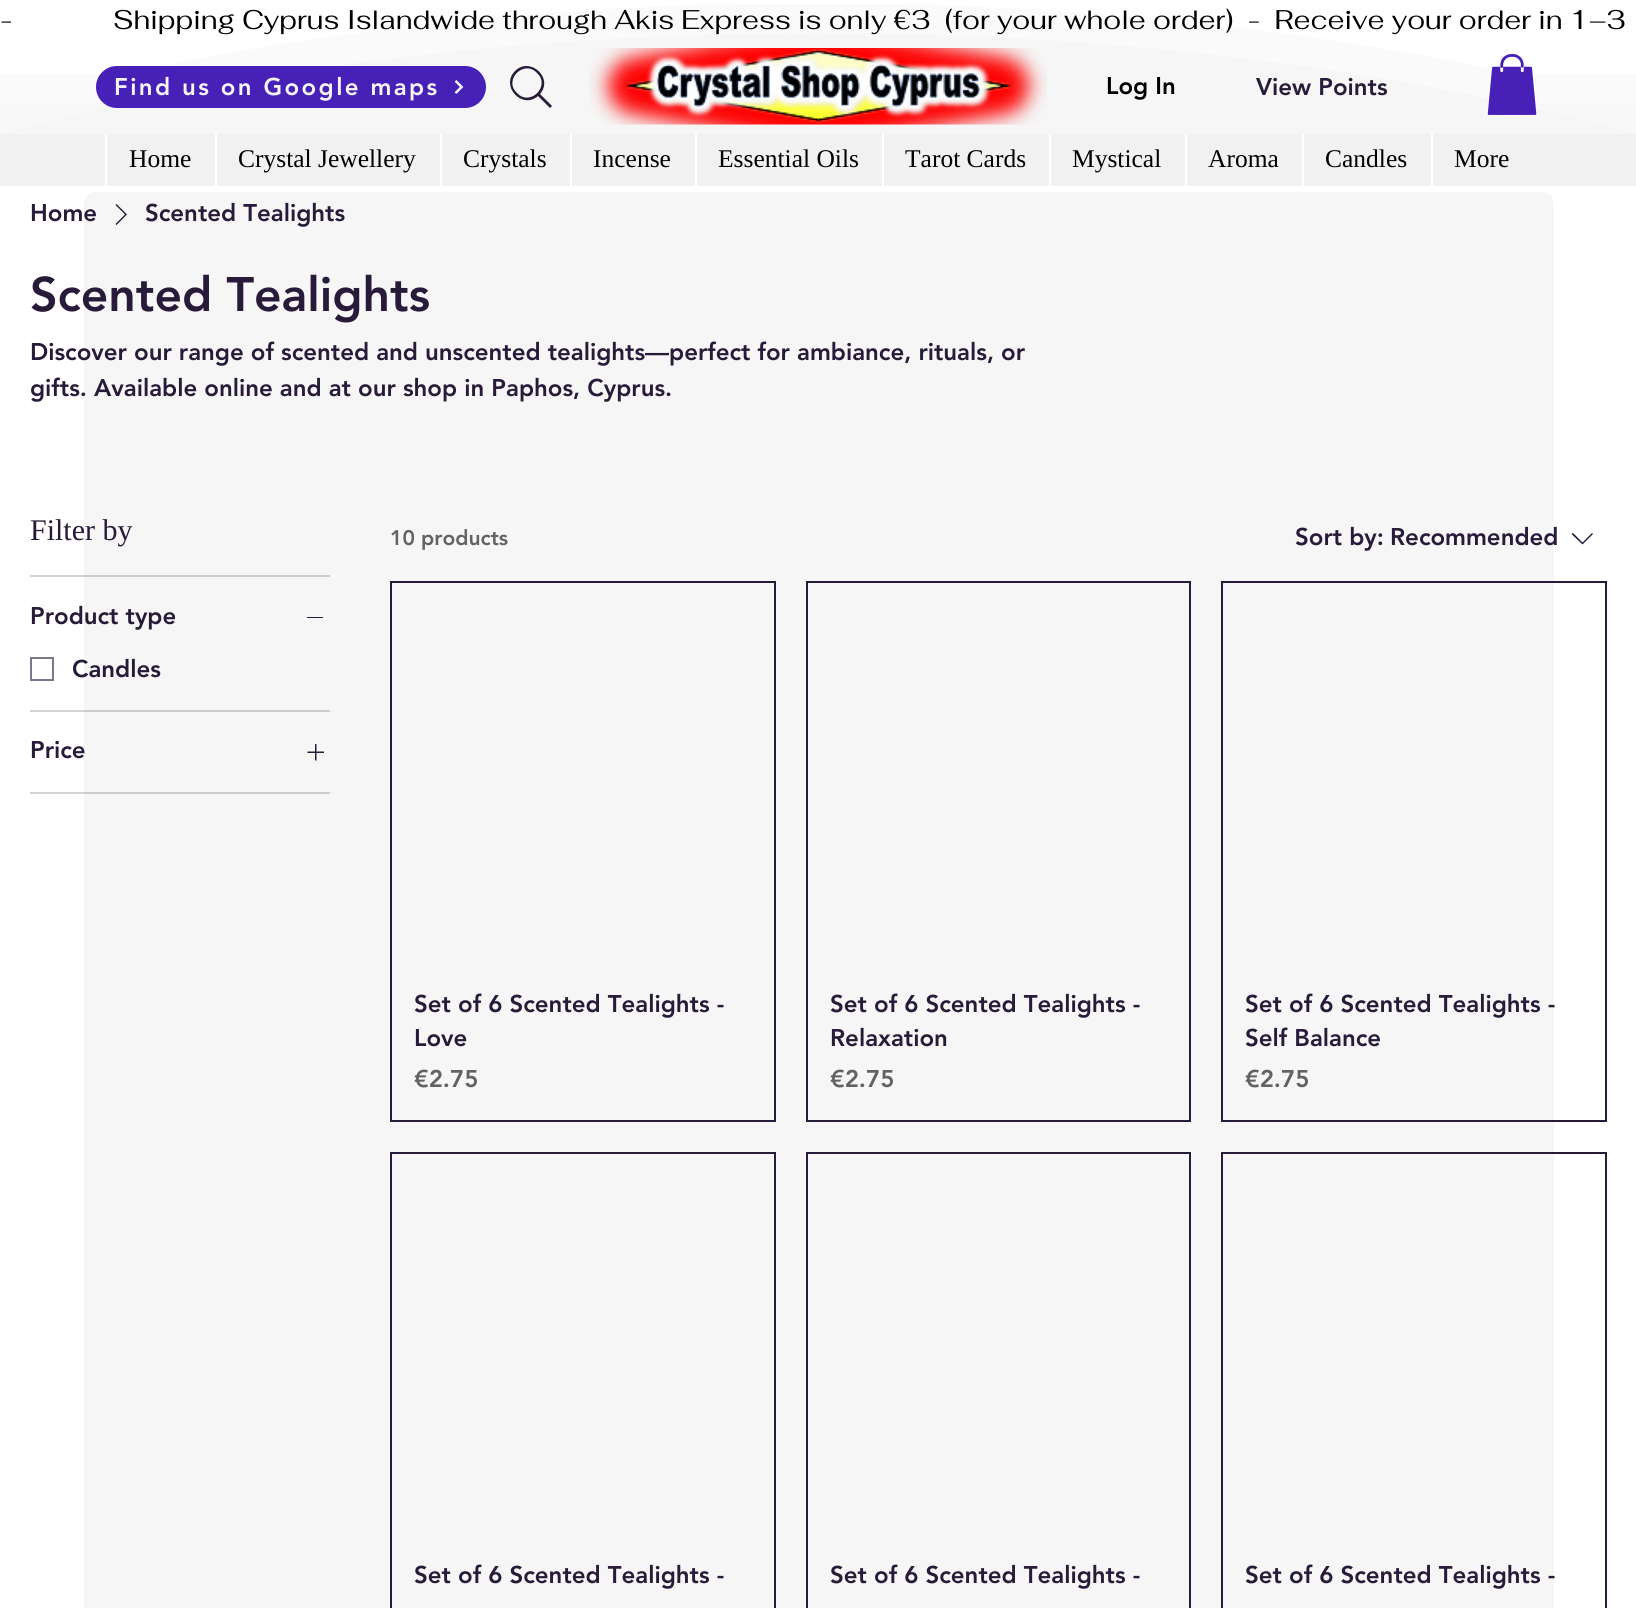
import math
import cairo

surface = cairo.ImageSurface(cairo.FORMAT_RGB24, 1636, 1608)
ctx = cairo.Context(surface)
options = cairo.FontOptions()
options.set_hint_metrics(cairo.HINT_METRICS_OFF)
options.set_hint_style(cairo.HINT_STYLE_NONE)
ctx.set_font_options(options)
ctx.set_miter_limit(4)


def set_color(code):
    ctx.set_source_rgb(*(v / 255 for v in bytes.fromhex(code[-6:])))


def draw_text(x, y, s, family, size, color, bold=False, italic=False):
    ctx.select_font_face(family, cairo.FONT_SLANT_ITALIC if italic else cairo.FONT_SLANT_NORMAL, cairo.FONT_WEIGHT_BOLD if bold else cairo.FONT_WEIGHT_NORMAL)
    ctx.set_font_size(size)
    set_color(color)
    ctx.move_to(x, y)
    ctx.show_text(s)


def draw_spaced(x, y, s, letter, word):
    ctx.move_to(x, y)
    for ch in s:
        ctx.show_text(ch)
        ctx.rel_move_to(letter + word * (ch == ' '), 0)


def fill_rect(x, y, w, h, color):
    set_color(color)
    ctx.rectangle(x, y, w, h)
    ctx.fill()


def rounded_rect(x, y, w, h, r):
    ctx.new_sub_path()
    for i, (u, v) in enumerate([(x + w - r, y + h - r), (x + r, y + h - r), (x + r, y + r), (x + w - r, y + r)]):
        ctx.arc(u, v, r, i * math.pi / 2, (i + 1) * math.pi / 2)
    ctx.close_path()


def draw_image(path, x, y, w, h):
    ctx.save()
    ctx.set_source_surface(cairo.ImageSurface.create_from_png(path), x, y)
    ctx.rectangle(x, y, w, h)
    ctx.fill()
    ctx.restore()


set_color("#ffffff")
ctx.paint()
fill_rect(30, 792, 54, 2, "#d4d1d7")
fill_rect(30, 710, 54, 2, "#d4d1d7")
fill_rect(30, 575, 54, 2, "#d4d1d7")
draw_image("assets/img1.png", 157, 4, 1347, 70)
fill_rect(0, 104, 1636, 30, "#f8f8f8")
fill_rect(0, 74, 1636, 30, "#fafafa")
set_color("#f6f6f6")
ctx.new_path()
ctx.move_to(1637, 134)
ctx.curve_to(1412, 72, 1128, 33, 818, 33)
ctx.curve_to(509, 33, 224, 72, 0, 134)
ctx.close_path()
ctx.fill()
draw_text(0, 29, "-              Shipping Cyprus Islandwide through Akis Express is only €3  (for your whole order)  -  Receive your order in 1–3", "Fahkwang", 27, "#000000")
set_color("#4720b7")
rounded_rect(96, 66, 390, 42, 21)
ctx.fill()
ctx.select_font_face("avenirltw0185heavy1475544 Black")
ctx.set_font_size(24)
set_color("#f6f6f6")
draw_spaced(114, 95, "Find us on Google maps", 2.4, 0)
draw_image("assets/img2.png", 454, 80, 10, 14)
set_color("#281a39")
ctx.set_fill_rule(cairo.FILL_RULE_EVEN_ODD)
ctx.new_path()
ctx.move_to(517, 93)
ctx.curve_to(503, 80, 524, 59, 537, 73)
ctx.curve_to(551, 86, 530, 107, 517, 93)
ctx.close_path()
ctx.move_to(552, 106)
ctx.line_to(540, 94)
ctx.curve_to(554, 78, 530, 56, 515, 71)
ctx.curve_to(500, 86, 522, 110, 538, 96)
ctx.line_to(550, 108)
ctx.close_path()
ctx.fill()
draw_image("assets/img3.png", 589, 48, 458, 77)
draw_text(1106, 94, "Log In", "avenirltw0185heavy1475544 Black", 24, "#000000")
draw_text(1256, 95, "View Points", "avenirltw0185heavy1475544 Black", 24, "#281a39")
draw_image("assets/img4.png", 1487, 54, 50, 61)
fill_rect(0, 134, 1636, 52, "#f1f1f1")
fill_rect(105, 134, 2, 52, "#ffffff")
draw_text(129, 167, "Home", "Liberation Serif", 25.5, "#000000")
fill_rect(215, 134, 2, 52, "#ffffff")
draw_text(238, 167, "Crystal Jewellery", "Liberation Serif", 25.5, "#000000")
fill_rect(440, 134, 2, 52, "#ffffff")
draw_text(463, 167, "Crystals", "Liberation Serif", 25.5, "#000000")
fill_rect(570, 134, 2, 52, "#ffffff")
draw_text(593, 167, "Incense", "Liberation Serif", 25.5, "#000000")
fill_rect(695, 134, 2, 52, "#ffffff")
draw_text(718, 167, "Essential Oils", "Liberation Serif", 25.5, "#000000")
fill_rect(882, 134, 2, 52, "#ffffff")
draw_text(905, 167, "Tarot Cards", "Liberation Serif", 25.5, "#000000")
fill_rect(1049, 134, 2, 52, "#ffffff")
draw_text(1072, 167, "Mystical", "Liberation Serif", 25.5, "#000000")
fill_rect(1185, 134, 2, 52, "#ffffff")
draw_text(1208, 167, "Aroma", "Liberation Serif", 25.5, "#000000")
fill_rect(1302, 134, 2, 52, "#ffffff")
draw_text(1325, 167, "Candles", "Liberation Serif", 25.5, "#000000")
fill_rect(1431, 134, 2, 52, "#ffffff")
draw_text(1454, 167, "More", "Liberation Serif", 25.5, "#000000")
set_color("#f6f6f6")
rounded_rect(84, 192, 1470, 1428, 12)
ctx.fill()
fill_rect(84, 792, 246, 2, "#cdcad0")
fill_rect(84, 710, 246, 2, "#cdcad0")
fill_rect(84, 575, 246, 2, "#cdcad0")
draw_text(30, 221, "Home", "avenirltw0185heavy1475544 Black", 24, "#281a39")
ctx.new_path()
ctx.move_to(116.5, 204)
ctx.line_to(127, 214.5)
ctx.line_to(116.5, 225)
ctx.line_to(115.5, 224)
ctx.line_to(125, 214.5)
ctx.line_to(115.5, 205)
ctx.close_path()
ctx.fill()
draw_text(145, 221, "Scented Tealights", "avenirltw0185heavy1475544 Black", 24, "#281a39")
draw_text(30, 311, "Scented Tealights", "avenirltw0185heavy1475544 Black", 48, "#281a39")
draw_text(30, 360, "Discover our range of scented and unscented tealights—perfect for ambiance, rituals, or", "avenirltw0185heavy1475544 Black", 24, "#281a39")
draw_text(30, 396, "gifts. Available online and at our shop in Paphos, Cyprus.", "avenirltw0185heavy1475544 Black", 24, "#281a39")
draw_text(30, 540, "Filter by", "Liberation Serif", 30, "#281a39")
draw_text(30, 624, "Product type", "avenirltw0185heavy1475544 Black", 24, "#281a39")
fill_rect(307, 617, 16, 1, "#281a39")
ctx.rectangle(31, 658, 22, 22)
set_color("#7e7688")
ctx.stroke()
draw_text(72, 677, "Candles", "avenirltw0185heavy1475544 Black", 24, "#281a39")
draw_text(30, 758, "Price", "avenirltw0185heavy1475544 Black", 24, "#281a39")
draw_image("assets/img5.png", 307, 744, 17, 17)
draw_text(390, 545, "10 products", "avenirltw0185heavy1475544 Black", 21, "#626262")
draw_text(1295, 545, "Sort by:", "avenirltw0185heavy1475544 Black", 24, "#281a39")
draw_text(1390, 545, "Recommended", "avenirltw0185heavy1475544 Black", 24, "#281a39")
ctx.new_path()
ctx.move_to(1592, 533)
ctx.line_to(1593, 534)
ctx.line_to(1582.5, 544.5)
ctx.line_to(1571.5, 534)
ctx.line_to(1573, 533)
ctx.line_to(1582.5, 542.5)
ctx.close_path()
ctx.fill()
ctx.rectangle(391, 582, 384, 539)
ctx.stroke()
draw_text(414, 1012, "Set of 6 Scented Tealights -", "avenirltw0185heavy1475544 Black", 24, "#281a39")
draw_text(414, 1046, "Love", "avenirltw0185heavy1475544 Black", 24, "#281a39")
draw_text(414, 1087, "€2.75", "avenirltw0185heavy1475544 Black", 24, "#626262")
ctx.rectangle(807, 582, 383, 539)
set_color("#281a39")
ctx.stroke()
draw_text(830, 1012, "Set of 6 Scented Tealights -", "avenirltw0185heavy1475544 Black", 24, "#281a39")
draw_text(830, 1046, "Relaxation", "avenirltw0185heavy1475544 Black", 24, "#281a39")
draw_text(830, 1087, "€2.75", "avenirltw0185heavy1475544 Black", 24, "#626262")
ctx.rectangle(1222, 582, 384, 539)
set_color("#281a39")
ctx.stroke()
draw_text(1245, 1012, "Set of 6 Scented Tealights -", "avenirltw0185heavy1475544 Black", 24, "#281a39")
draw_text(1245, 1046, "Self Balance", "avenirltw0185heavy1475544 Black", 24, "#281a39")
draw_text(1245, 1087, "€2.75", "avenirltw0185heavy1475544 Black", 24, "#626262")
ctx.rectangle(391, 1153, 384, 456)
set_color("#281a39")
ctx.stroke()
draw_text(414, 1583, "Set of 6 Scented Tealights -", "avenirltw0185heavy1475544 Black", 24, "#281a39")
ctx.rectangle(807, 1153, 383, 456)
ctx.stroke()
draw_text(830, 1583, "Set of 6 Scented Tealights -", "avenirltw0185heavy1475544 Black", 24, "#281a39")
ctx.rectangle(1222, 1153, 384, 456)
ctx.stroke()
draw_text(1245, 1583, "Set of 6 Scented Tealights -", "avenirltw0185heavy1475544 Black", 24, "#281a39")
surface.write_to_png("output.png")
